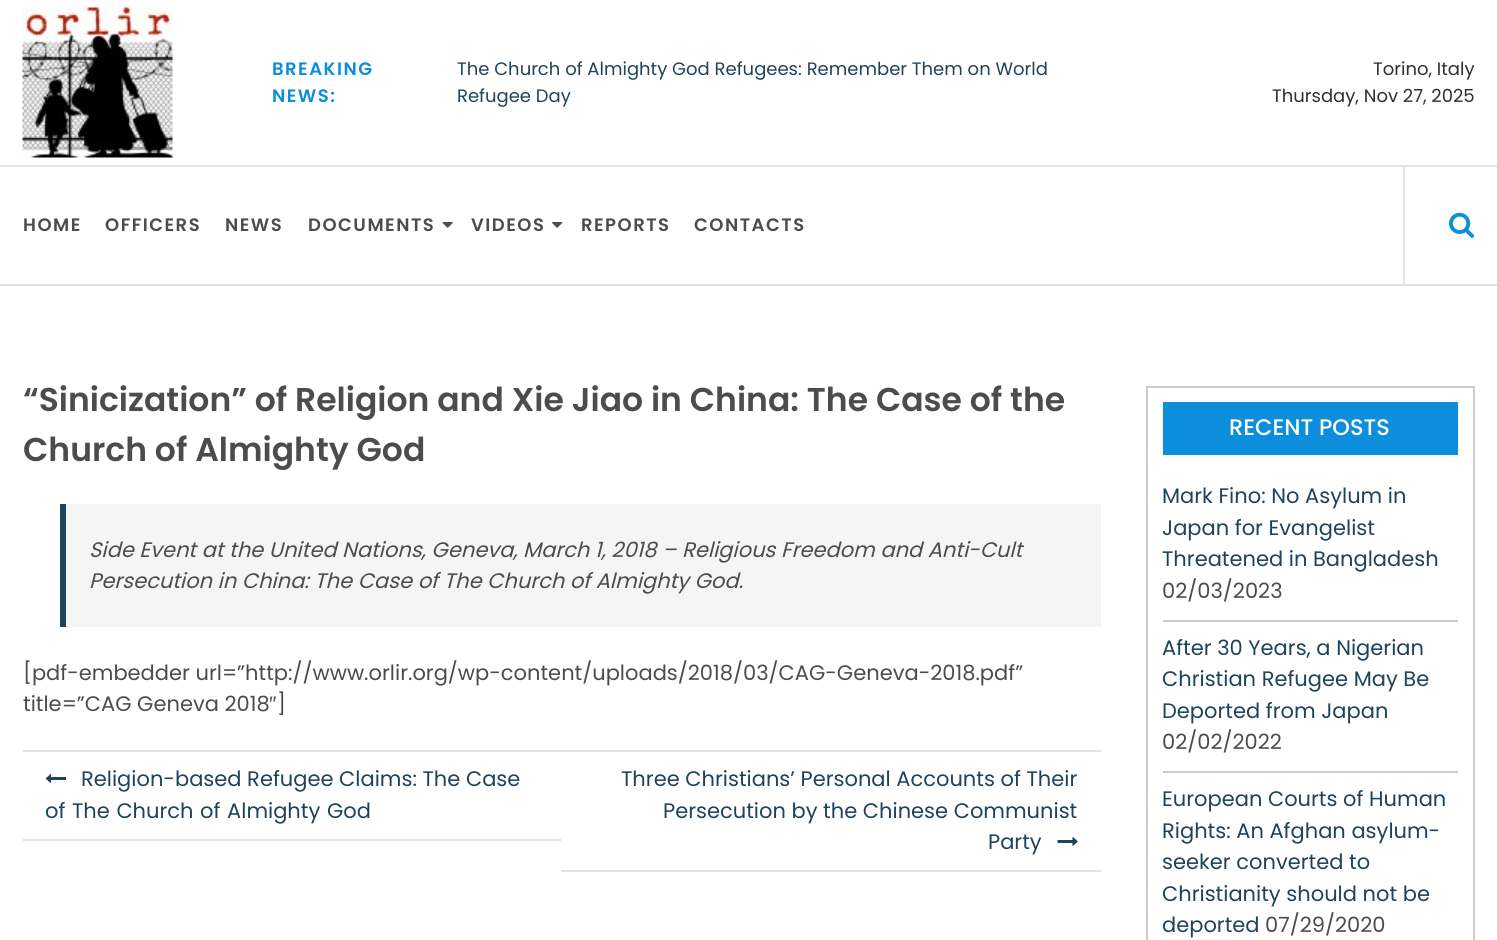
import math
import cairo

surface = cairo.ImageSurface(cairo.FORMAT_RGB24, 1497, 940)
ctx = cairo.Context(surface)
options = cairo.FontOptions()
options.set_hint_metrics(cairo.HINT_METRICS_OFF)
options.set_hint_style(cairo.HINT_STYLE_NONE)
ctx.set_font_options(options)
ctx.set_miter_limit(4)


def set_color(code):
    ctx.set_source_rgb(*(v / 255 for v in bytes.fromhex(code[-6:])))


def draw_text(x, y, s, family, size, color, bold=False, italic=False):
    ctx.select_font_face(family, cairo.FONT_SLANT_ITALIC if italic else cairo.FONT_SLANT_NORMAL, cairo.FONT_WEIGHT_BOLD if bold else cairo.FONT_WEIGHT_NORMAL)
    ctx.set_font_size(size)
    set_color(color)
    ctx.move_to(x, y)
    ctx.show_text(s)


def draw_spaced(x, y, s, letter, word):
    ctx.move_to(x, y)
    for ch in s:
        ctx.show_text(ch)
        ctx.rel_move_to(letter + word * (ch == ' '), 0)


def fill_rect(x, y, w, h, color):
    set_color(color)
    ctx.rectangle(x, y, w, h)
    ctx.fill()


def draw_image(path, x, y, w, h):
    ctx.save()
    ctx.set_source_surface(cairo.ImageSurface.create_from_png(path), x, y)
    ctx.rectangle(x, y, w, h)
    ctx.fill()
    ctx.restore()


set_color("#ffffff")
ctx.paint()
draw_image("assets/img1.png", 22, 7, 151, 151)
ctx.select_font_face("Poppins SemiBold")
ctx.set_font_size(18)
set_color("#0c8edc")
draw_spaced(272, 75, "BREAKING", 1.5, 0)
draw_spaced(272, 102, "NEWS:", 1.5, 0)
draw_text(457, 75, "The Church of Almighty God Refugees: Remember Them on World", "Poppins", 18, "#1e435a")
draw_text(457, 102, "Refugee Day", "Poppins", 18, "#1e435a")
draw_text(1373, 75, "Torino, Italy", "Poppins", 18, "#2e2f30")
draw_text(1272, 102, "Thursday, Nov 27, 2025", "Poppins", 18, "#2e2f30")
fill_rect(0, 165, 1497, 2, "#dee3e7")
fill_rect(0, 284, 1497, 2, "#dee3e7")
ctx.select_font_face("Poppins SemiBold")
set_color("#4c4c4c")
draw_spaced(23, 231, "HOME", 1.5, 0)
draw_spaced(105, 231, "OFFICERS", 1.5, 0)
draw_spaced(225, 231, "NEWS", 1.5, 0)
draw_spaced(308, 231, "DOCUMENTS", 1.5, 0)
draw_image("assets/img2.png", 442, 222, 11, 6)
draw_spaced(471, 231, "VIDEOS", 1.5, 0)
draw_image("assets/img3.png", 552, 222, 11, 6)
draw_spaced(581, 231, "REPORTS", 1.5, 0)
draw_spaced(694, 231, "CONTACTS", 1.5, 0)
fill_rect(1403, 167, 2, 117, "#e5e5e5")
draw_image("assets/img4.png", 1449, 212, 25, 26)
draw_text(23, 411, "“Sinicization” of Religion and Xie Jiao in China: The Case of the", "Poppins SemiBold", 33, "#4c4c4c")
draw_text(23, 461, "Church of Almighty God", "Poppins SemiBold", 33, "#4c4c4c")
fill_rect(66, 504, 1035, 123, "#f5f5f5")
fill_rect(60, 504, 6, 123, "#1e435a")
draw_text(89, 557, "Side Event at the United Nations, Geneva, March 1, 2018 – Religious Freedom and Anti-Cult", "Poppins", 21, "#4c4c4c", italic=True)
draw_text(89, 588, "Persecution in China: The Case of The Church of Almighty God.", "Poppins", 21, "#4c4c4c", italic=True)
draw_text(23, 680, "[pdf-embedder url=”http://www.orlir.org/wp-content/uploads/2018/03/CAG-Geneva-2018.pdf”", "Poppins", 21, "#4c4c4c")
draw_text(23, 711, "title=”CAG Geneva 2018", "Poppins", 21, "#4c4c4c")
draw_text(269, 711, "″", "Liberation Sans", 21, "#4c4c4c")
draw_text(277, 711, "]", "Poppins", 21, "#4c4c4c")
fill_rect(23, 750, 1078, 2, "#dee3e7")
fill_rect(23, 839, 538, 2, "#dee3e7")
draw_image("assets/img5.png", 45, 774, 21, 9)
draw_text(81, 786, "Religion-based Refugee Claims: The Case", "Poppins", 21, "#1e435a")
draw_spaced(45, 818, "of The Church of Almighty God", 0, 1)
fill_rect(561, 870, 540, 2, "#dee3e7")
draw_text(621, 786, "Three Christians’ Personal Accounts of Their", "Poppins", 21, "#1e435a")
draw_text(663, 818, "Persecution by the Chinese Communist", "Poppins", 21, "#1e435a")
draw_text(988, 849, "Party", "Poppins", 21, "#1e435a")
draw_image("assets/img6.png", 1057, 837, 21, 9)
ctx.rectangle(1147, 387, 327, 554)
set_color("#cccccc")
ctx.stroke()
fill_rect(1163, 402, 295, 53, "#0c8edc")
draw_text(1229, 435, "RECENT POSTS", "Poppins Medium", 22.5, "#ffffff")
fill_rect(1163, 620, 295, 2, "#cccccc")
draw_text(1162, 503, "Mark Fino: No Asylum in", "Poppins", 21, "#1e435a")
draw_text(1162, 535, "Japan for Evangelist", "Poppins", 21, "#1e435a")
draw_text(1162, 566, "Threatened in Bangladesh", "Poppins", 21, "#1e435a")
draw_text(1162, 598, "02/03/2023", "Poppins", 21, "#4c4c4c")
fill_rect(1163, 771, 295, 2, "#cccccc")
draw_text(1162, 655, "After 30 Years, a Nigerian", "Poppins", 21, "#1e435a")
draw_text(1162, 686, "Christian Refugee May Be", "Poppins", 21, "#1e435a")
draw_text(1162, 718, "Deported from Japan", "Poppins", 21, "#1e435a")
draw_text(1162, 749, "02/02/2022", "Poppins", 21, "#4c4c4c")
draw_text(1162, 806, "European Courts of Human", "Poppins", 21, "#1e435a")
draw_text(1162, 838, "Rights: An Afghan asylum-", "Poppins", 21, "#1e435a")
draw_text(1162, 869, "seeker converted to", "Poppins", 21, "#1e435a")
draw_text(1162, 901, "Christianity should not be", "Poppins", 21, "#1e435a")
draw_text(1162, 932, "deported", "Poppins", 21, "#1e435a")
draw_text(1265, 932, "07/29/2020", "Poppins", 21, "#4c4c4c")
surface.write_to_png("output.png")
